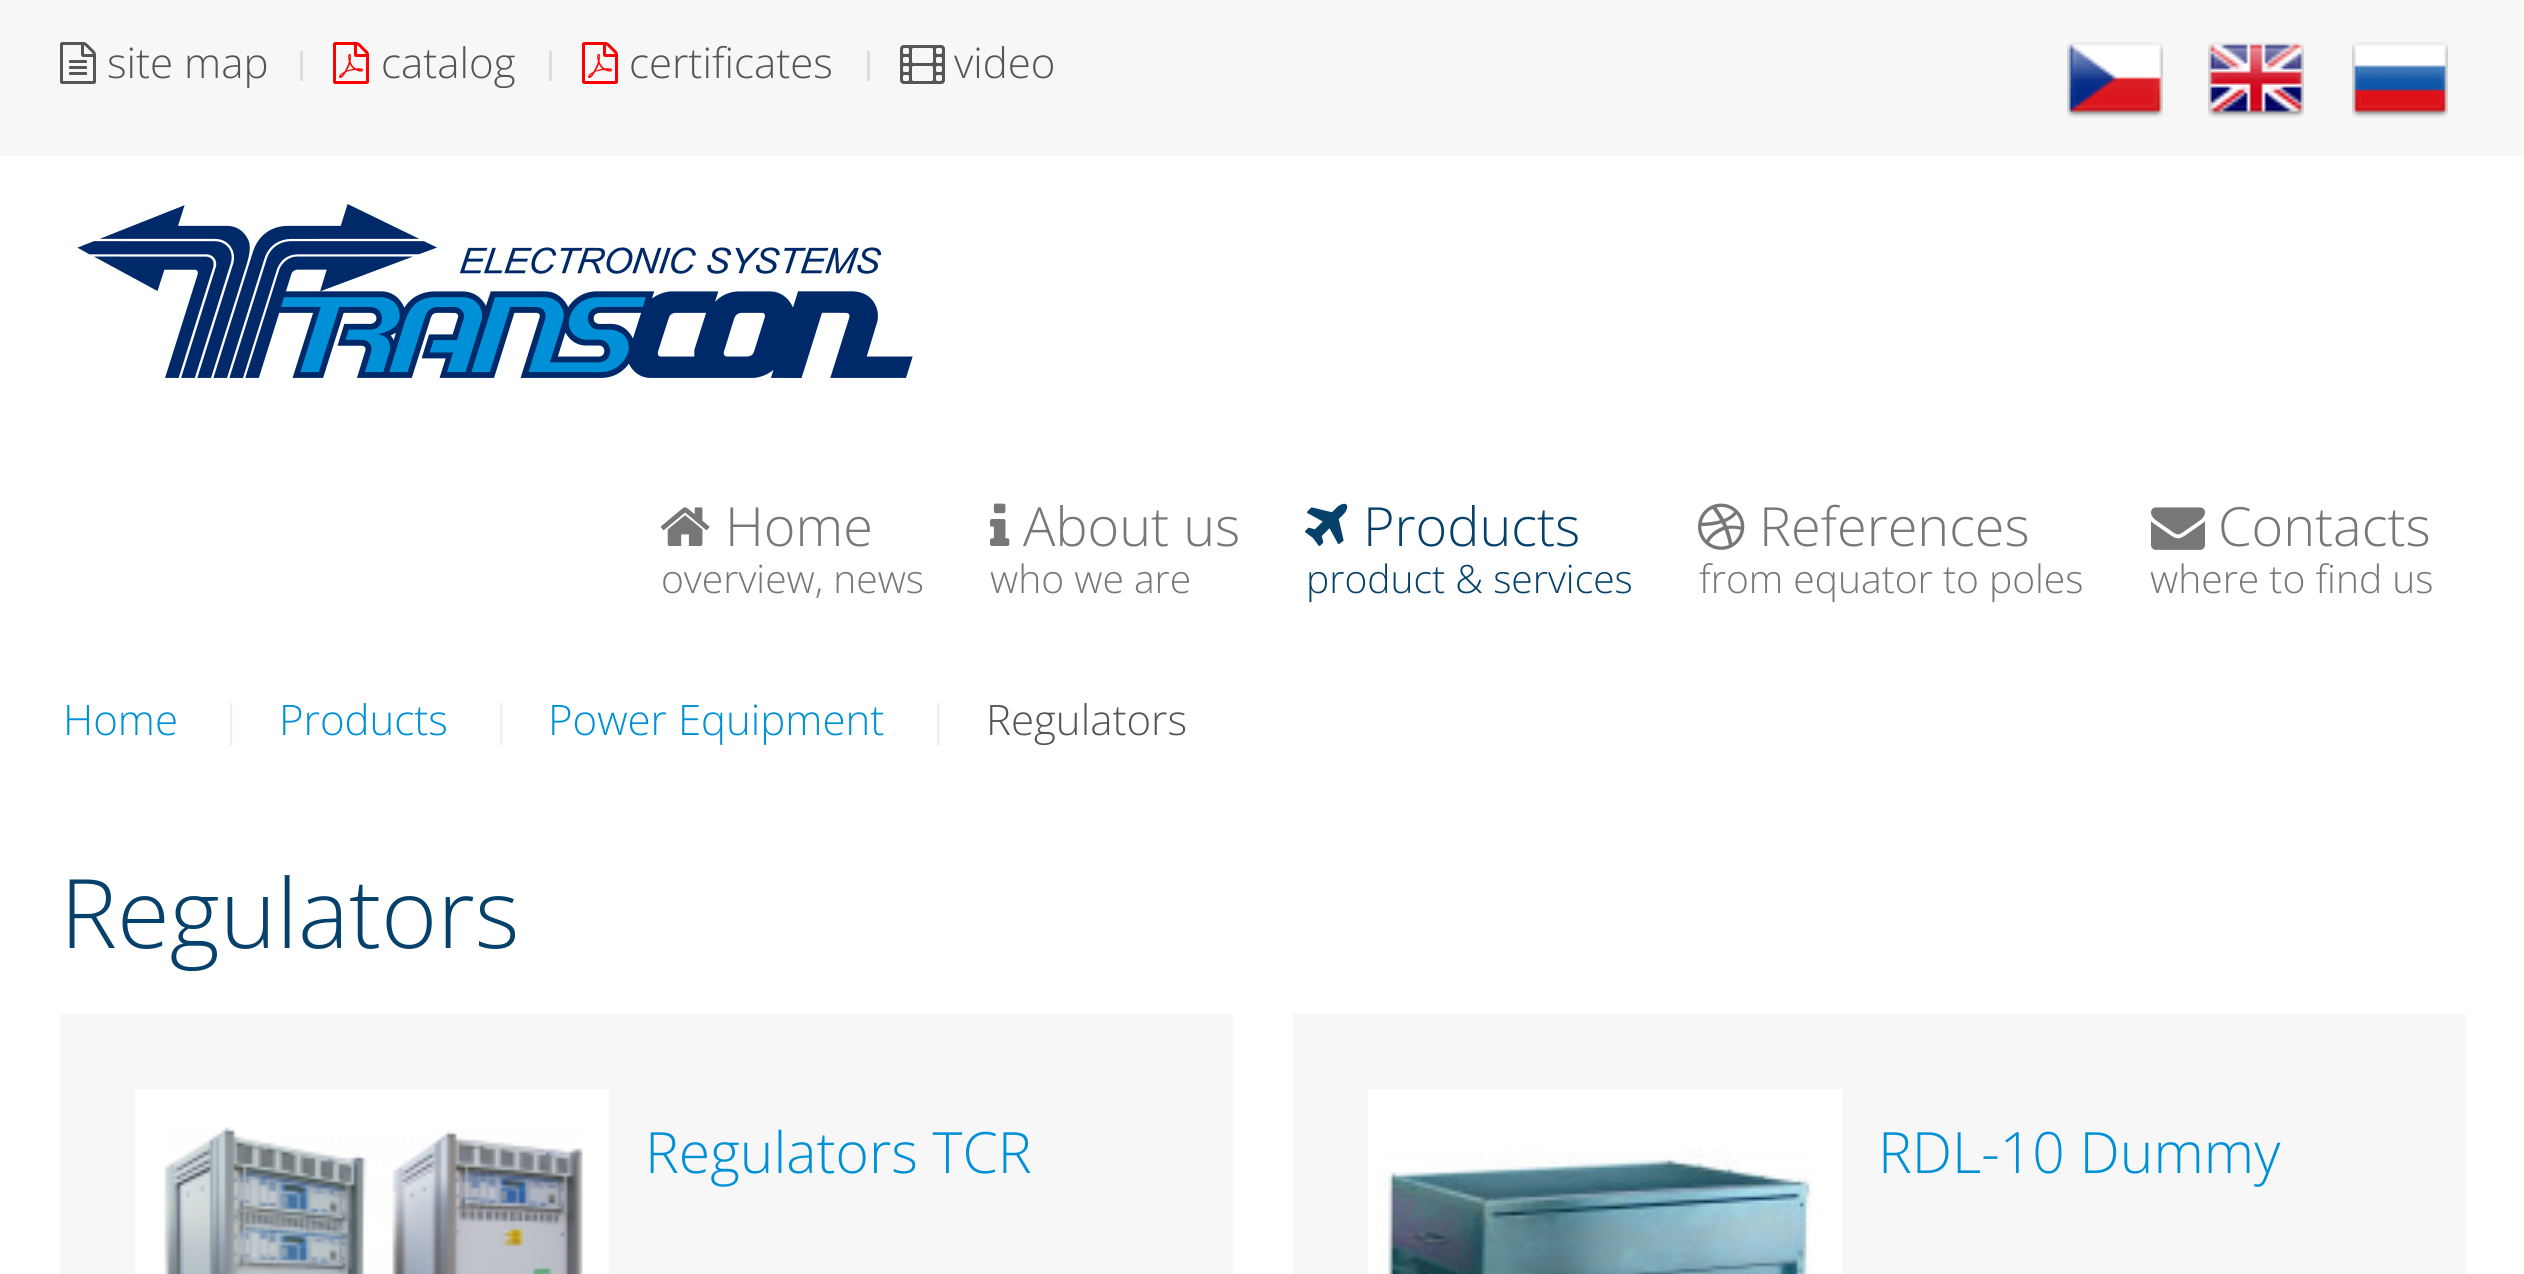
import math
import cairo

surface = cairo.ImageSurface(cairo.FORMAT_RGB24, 2524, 1274)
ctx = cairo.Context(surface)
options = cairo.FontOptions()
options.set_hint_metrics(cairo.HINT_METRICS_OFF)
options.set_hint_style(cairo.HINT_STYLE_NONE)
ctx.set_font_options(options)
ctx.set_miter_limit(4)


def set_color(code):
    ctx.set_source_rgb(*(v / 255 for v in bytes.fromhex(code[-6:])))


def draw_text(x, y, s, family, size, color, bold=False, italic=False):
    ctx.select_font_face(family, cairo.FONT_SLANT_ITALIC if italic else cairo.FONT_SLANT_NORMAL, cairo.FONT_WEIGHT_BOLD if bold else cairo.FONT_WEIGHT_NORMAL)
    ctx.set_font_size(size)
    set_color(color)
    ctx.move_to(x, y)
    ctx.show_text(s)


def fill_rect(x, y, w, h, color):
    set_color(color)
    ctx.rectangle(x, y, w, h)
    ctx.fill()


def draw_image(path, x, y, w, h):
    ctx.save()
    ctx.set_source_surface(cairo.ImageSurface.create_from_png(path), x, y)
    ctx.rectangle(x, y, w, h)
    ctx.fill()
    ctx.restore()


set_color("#ffffff")
ctx.paint()
fill_rect(0, 0, 2524, 156, "#f7f7f7")
draw_image("assets/img1.png", 60, 42, 36, 42)
draw_text(107, 78, "site map", "Open Sans Light", 42, "#555555")
fill_rect(300, 51, 3, 30, "#dedede")
draw_image("assets/img2.png", 333, 42, 36, 42)
draw_text(381, 78, "catalog", "Open Sans Light", 42, "#555555")
fill_rect(549, 51, 3, 30, "#dedede")
draw_image("assets/img2.png", 582, 42, 36, 42)
draw_text(629, 78, "certificates", "Open Sans Light", 42, "#555555")
fill_rect(867, 51, 3, 30, "#dedede")
draw_image("assets/img3.png", 900, 45, 45, 39)
draw_text(954, 78, "video", "Open Sans Light", 42, "#555555")
draw_image("assets/img4.png", 2067, 42, 96, 76)
draw_image("assets/img5.png", 2208, 42, 96, 76)
draw_image("assets/img6.png", 2352, 42, 96, 76)
draw_image("assets/img7.png", 77, 204, 836, 174)
draw_image("assets/img8.png", 660, 507, 50, 39)
draw_text(725, 546, "Home", "Open Sans Light", 54, "#777777")
draw_text(661, 593, "overview, news", "Open Sans Light", 39, "#777777")
draw_image("assets/img9.png", 990, 503, 20, 43)
draw_text(1023, 546, "About us", "Open Sans Light", 54, "#777777")
draw_text(990, 593, "who we are", "Open Sans Light", 39, "#777777")
draw_image("assets/img10.png", 1305, 503, 43, 43)
draw_text(1363, 546, "Products", "Open Sans Light", 54, "#05416a")
draw_text(1306, 593, "product & services", "Open Sans Light", 39, "#05416a")
draw_image("assets/img11.png", 1698, 503, 47, 47)
draw_text(1759, 546, "References", "Open Sans Light", 54, "#777777")
draw_text(1699, 593, "from equator to poles", "Open Sans Light", 39, "#777777")
draw_image("assets/img12.png", 2151, 507, 54, 43)
draw_text(2218, 546, "Contacts", "Open Sans Light", 54, "#777777")
draw_text(2150, 593, "where to find us", "Open Sans Light", 39, "#777777")
draw_text(63, 735, "Home", "Open Sans Light", 42, "#0090d7")
draw_text(220, 735, "|", "Open Sans Light", 42, "#e9ebed")
draw_text(279, 735, "Products", "Open Sans Light", 42, "#0090d7")
draw_text(490, 735, "|", "Open Sans Light", 42, "#e9ebed")
draw_text(548, 735, "Power Equipment", "Open Sans Light", 42, "#0090d7")
draw_text(927, 735, "|", "Open Sans Light", 42, "#e9ebed")
draw_text(986, 735, "Regulators", "Open Sans Light", 42, "#555555")
draw_text(60, 948, "Regulators", "Open Sans Light", 96, "#05416a")
fill_rect(60, 1014, 1173, 260, "#f7f7f7")
fill_rect(135, 1089, 474, 185, "#ffffff")
draw_image("assets/img13.png", 164, 1127, 419, 147)
draw_text(645, 1173, "Regulators TCR", "Open Sans Light", 57, "#0090d7")
fill_rect(1293, 1014, 1173, 260, "#f7f7f7")
fill_rect(1368, 1089, 474, 185, "#ffffff")
draw_image("assets/img14.png", 1380, 1149, 433, 125)
draw_text(1878, 1173, "RDL-10 Dummy", "Open Sans Light", 57, "#0090d7")
surface.write_to_png("output.png")
